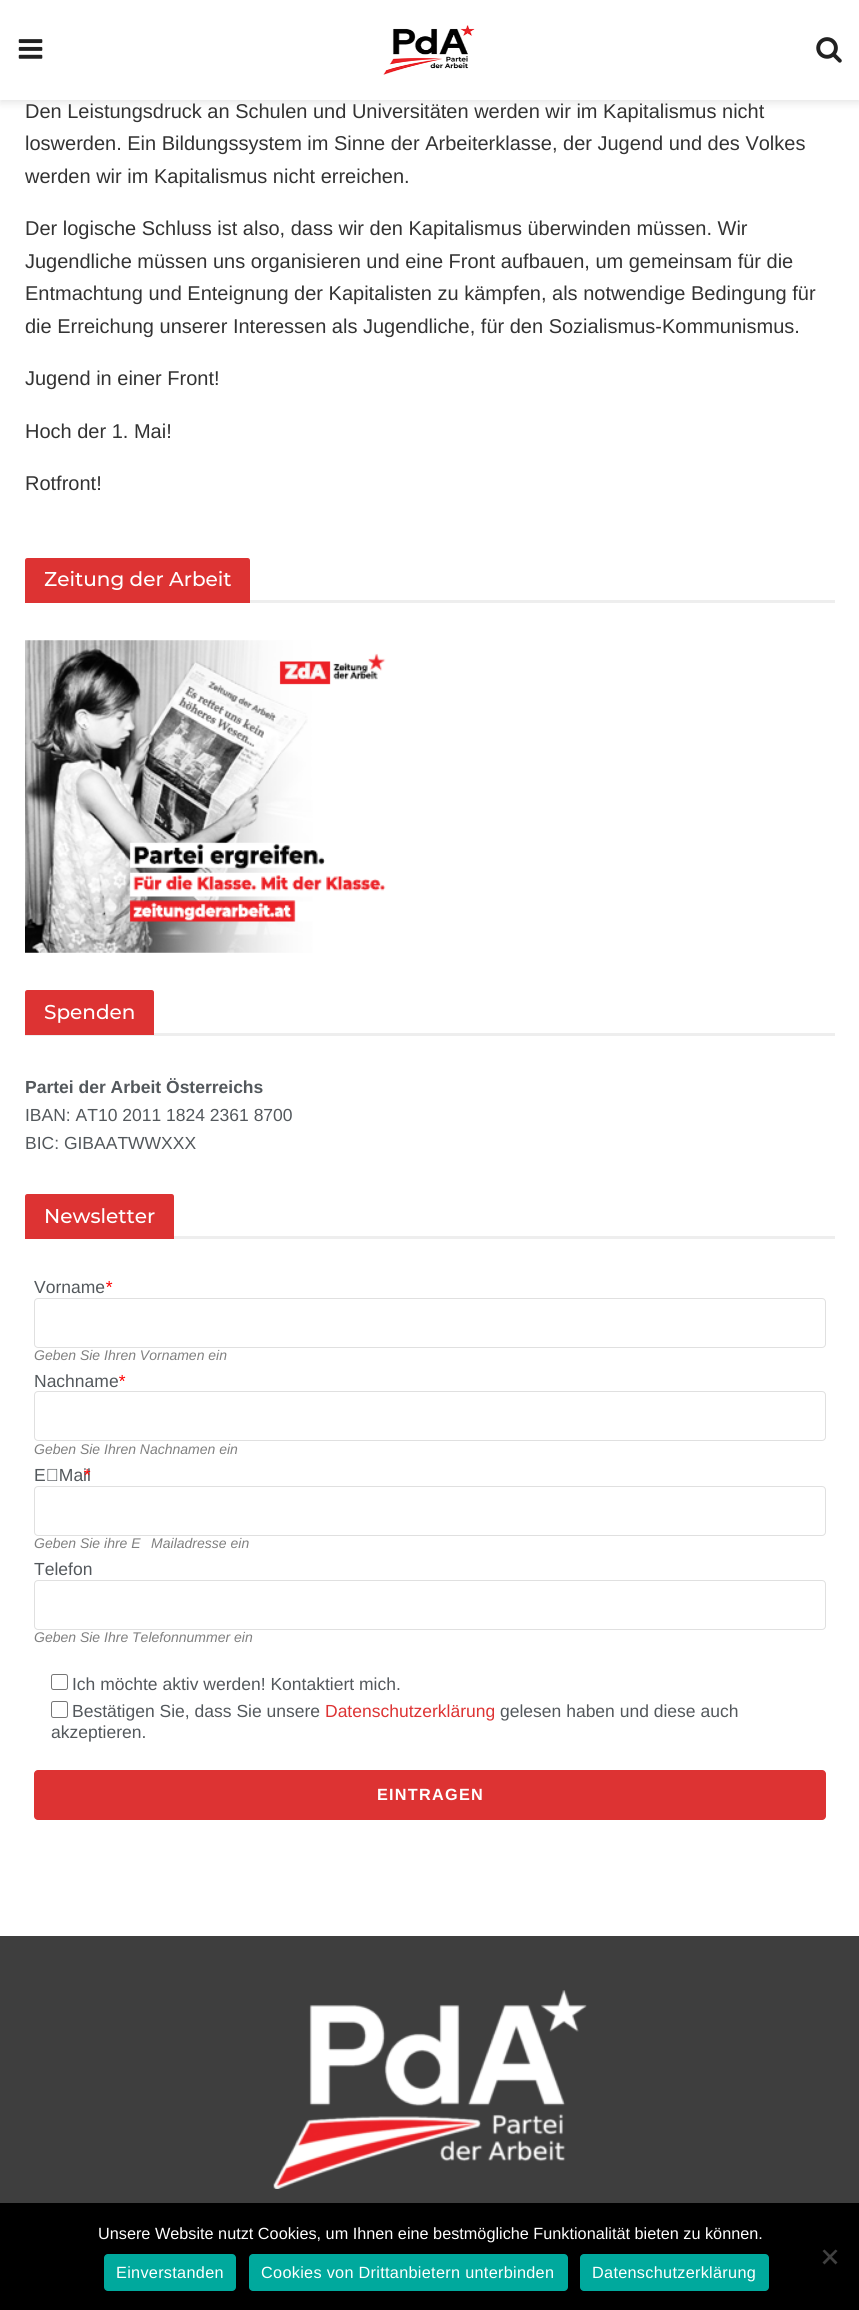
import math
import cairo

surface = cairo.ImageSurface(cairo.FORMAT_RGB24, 859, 2310)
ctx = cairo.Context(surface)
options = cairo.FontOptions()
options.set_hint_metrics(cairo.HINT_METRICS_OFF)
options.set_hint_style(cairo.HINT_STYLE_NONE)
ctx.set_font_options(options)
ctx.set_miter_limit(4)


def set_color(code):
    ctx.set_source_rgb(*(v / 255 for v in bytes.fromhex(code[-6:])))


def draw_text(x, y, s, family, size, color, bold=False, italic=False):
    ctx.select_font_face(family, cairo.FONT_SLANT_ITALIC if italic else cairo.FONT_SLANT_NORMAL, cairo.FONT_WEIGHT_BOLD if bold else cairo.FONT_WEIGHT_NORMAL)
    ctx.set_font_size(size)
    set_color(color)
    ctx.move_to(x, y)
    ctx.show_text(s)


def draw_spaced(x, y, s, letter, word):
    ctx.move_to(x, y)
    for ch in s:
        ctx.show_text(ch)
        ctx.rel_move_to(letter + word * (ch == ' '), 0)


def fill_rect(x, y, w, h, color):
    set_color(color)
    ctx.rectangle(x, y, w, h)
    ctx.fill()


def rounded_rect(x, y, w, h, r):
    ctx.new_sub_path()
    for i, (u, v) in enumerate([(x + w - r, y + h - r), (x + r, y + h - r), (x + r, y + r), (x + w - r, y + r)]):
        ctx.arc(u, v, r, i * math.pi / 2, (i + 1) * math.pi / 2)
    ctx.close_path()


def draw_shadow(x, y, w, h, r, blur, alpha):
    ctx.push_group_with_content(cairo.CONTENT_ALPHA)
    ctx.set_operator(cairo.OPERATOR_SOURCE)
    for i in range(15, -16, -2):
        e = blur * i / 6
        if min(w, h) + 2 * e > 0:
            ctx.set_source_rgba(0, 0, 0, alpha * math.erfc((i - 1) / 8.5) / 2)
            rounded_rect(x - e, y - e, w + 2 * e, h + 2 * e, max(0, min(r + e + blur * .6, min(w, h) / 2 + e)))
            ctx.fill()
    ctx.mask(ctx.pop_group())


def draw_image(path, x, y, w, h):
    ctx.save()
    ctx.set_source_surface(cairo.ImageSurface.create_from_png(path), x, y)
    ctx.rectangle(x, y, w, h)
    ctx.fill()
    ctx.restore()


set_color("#ffffff")
ctx.paint()
set_color("#000000")
draw_shadow(0, 3, 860, 100, 0, 4, 0.1)
fill_rect(0, 0, 859, 100, "#ffffff")
draw_image("assets/img1.png", 18, 39, 25, 20)
draw_image("assets/img2.png", 383, 25, 92, 50)
draw_image("assets/img3.png", 816, 37, 26, 26)
draw_text(25, 118, "Den Leistungsdruck an Schulen und Universitäten werden wir im Kapitalismus nicht", "Liberation Sans", 20, "#333333")
draw_text(25, 150, "loswerden. Ein Bildungssystem im Sinne der Arbeiterklasse, der Jugend und des Volkes", "Liberation Sans", 20, "#333333")
draw_text(25, 183, "werden wir im Kapitalismus nicht erreichen.", "Liberation Sans", 20, "#333333")
draw_text(25, 235, "Der logische Schluss ist also, dass wir den Kapitalismus überwinden müssen. Wir", "Liberation Sans", 20, "#333333")
draw_text(25, 268, "Jugendliche müssen uns organisieren und eine Front aufbauen, um gemeinsam für die", "Liberation Sans", 20, "#333333")
draw_text(25, 300, "Entmachtung und Enteignung der Kapitalisten zu kämpfen, als notwendige Bedingung für", "Liberation Sans", 20, "#333333")
draw_text(25, 333, "die Erreichung unserer Interessen als Jugendliche, für den Sozialismus-Kommunismus.", "Liberation Sans", 20, "#333333")
draw_text(25, 385, "Jugend in einer Front!", "Liberation Sans", 20, "#333333")
draw_text(25, 438, "Hoch der 1. Mai!", "Liberation Sans", 20, "#333333")
draw_text(25, 490, "Rotfront!", "Liberation Sans", 20, "#333333")
fill_rect(250, 600, 585, 3, "#eeeeee")
set_color("#dd3333")
ctx.new_path()
ctx.move_to(27.5, 558)
ctx.line_to(247.5, 558)
ctx.curve_to(249, 558, 250, 559, 250, 560.5)
ctx.line_to(250, 603)
ctx.line_to(25, 603)
ctx.line_to(25, 560.5)
ctx.curve_to(25, 559, 26, 558, 27.5, 558)
ctx.close_path()
ctx.fill()
draw_text(44, 586, "Zeitung der Arbeit", "Montserrat Medium", 20, "#ffffff")
draw_image("assets/img4.png", 25, 640, 361, 313)
fill_rect(25, 1033, 810, 3, "#eeeeee")
set_color("#dd3333")
ctx.new_path()
ctx.move_to(27.5, 990)
ctx.line_to(151.5, 990)
ctx.curve_to(153, 990, 154, 991, 154, 992.5)
ctx.line_to(154, 1035)
ctx.line_to(25, 1035)
ctx.line_to(25, 992.5)
ctx.curve_to(25, 991, 26, 990, 27.5, 990)
ctx.close_path()
ctx.fill()
draw_text(44, 1019, "Spenden", "Montserrat Medium", 20, "#ffffff")
draw_text(25, 1093, "Partei der Arbeit Österreichs", "Liberation Sans", 17.5, "#53585c", bold=True)
draw_text(25, 1121, "IBAN: AT10 2011 1824 2361 8700", "Liberation Sans", 17.5, "#53585c")
draw_text(25, 1149, "BIC: GIBAATWWXXX", "Liberation Sans", 17.5, "#53585c")
fill_rect(174, 1236, 661, 3, "#eeeeee")
set_color("#dd3333")
ctx.new_path()
ctx.move_to(27.5, 1194)
ctx.line_to(171.5, 1194)
ctx.curve_to(173, 1194, 174, 1195, 174, 1196.5)
ctx.line_to(174, 1239)
ctx.line_to(25, 1239)
ctx.line_to(25, 1196.5)
ctx.curve_to(25, 1195, 26, 1194, 27.5, 1194)
ctx.close_path()
ctx.fill()
draw_text(44, 1223, "Newsletter", "Montserrat Medium", 20, "#ffffff")
draw_text(34, 1293, "Vorname", "Liberation Sans", 17.5, "#53585c")
draw_text(105, 1293, "*", "Liberation Sans", 17.5, "#ff0000", italic=True)
rounded_rect(34.5, 1298.5, 791, 49, 3.5)
set_color("#e0e0e0")
ctx.set_line_width(1)
ctx.stroke()
draw_text(34, 1360, "Geben Sie Ihren Vornamen ein", "Liberation Sans", 14, "#808080", italic=True)
draw_text(34, 1387, "Nachname", "Liberation Sans", 17.5, "#53585c")
draw_text(118, 1387, "*", "Liberation Sans", 17.5, "#ff0000", italic=True)
rounded_rect(34.5, 1391.5, 791, 49, 3.5)
set_color("#e0e0e0")
ctx.stroke()
draw_text(34, 1454, "Geben Sie Ihren Nachnamen ein", "Liberation Sans", 14, "#808080", italic=True)
draw_text(34, 1481, "E‑Mail", "Liberation Sans", 17.5, "#53585c")
draw_text(83, 1481, "*", "Liberation Sans", 17.5, "#ff0000", italic=True)
rounded_rect(34.5, 1486.5, 791, 49, 3.5)
set_color("#e0e0e0")
ctx.stroke()
draw_text(34, 1548, "Geben Sie ihre E‑Mailadresse ein", "Liberation Sans", 14, "#808080", italic=True)
draw_text(34, 1575, "Telefon", "Liberation Sans", 17.5, "#53585c")
rounded_rect(34.5, 1580.5, 791, 49, 3.5)
set_color("#e0e0e0")
ctx.stroke()
draw_text(34, 1642, "Geben Sie Ihre Telefonnummer ein", "Liberation Sans", 14, "#808080", italic=True)
rounded_rect(51.5, 1674.5, 16, 15, 2)
set_color("#767676")
ctx.stroke()
draw_text(72, 1690, "Ich möchte aktiv werden! Kontaktiert mich.", "Liberation Sans", 17.5, "#53585c")
rounded_rect(51.5, 1701.5, 16, 16, 2)
set_color("#767676")
ctx.stroke()
draw_text(72, 1717, "Bestätigen Sie, dass Sie unsere", "Liberation Sans", 17.5, "#53585c")
draw_text(325, 1717, "Datenschutzerklärung", "Liberation Sans", 17.5, "#dd3333")
draw_text(500, 1717, "gelesen haben und diese auch", "Liberation Sans", 17.5, "#53585c")
draw_text(51, 1738, "akzeptieren.", "Liberation Sans", 17.5, "#53585c")
set_color("#dd3333")
rounded_rect(34, 1770, 792, 50, 4)
ctx.fill()
ctx.select_font_face("Liberation Sans", cairo.FONT_SLANT_NORMAL, cairo.FONT_WEIGHT_BOLD)
ctx.set_font_size(16.25)
set_color("#ffffff")
draw_spaced(377, 1800, "EINTRAGEN", 1.25, 0)
fill_rect(0, 1936, 859, 267, "#3e3e3e")
draw_image("assets/img5.png", 273, 1990, 314, 199)
fill_rect(0, 2203, 859, 107, "#000000")
draw_text(98, 2239, "Unsere Website nutzt Cookies, um Ihnen eine bestmögliche Funktionalität bieten zu können.", "Liberation Sans", 16.25, "#ffffff")
set_color("#404040")
ctx.new_path()
ctx.move_to(835.5, 2249.5)
ctx.line_to(837.5, 2251)
ctx.line_to(824.5, 2264.5)
ctx.line_to(822.5, 2262.5)
ctx.close_path()
ctx.fill()
ctx.new_path()
ctx.move_to(822.5, 2251)
ctx.line_to(824.5, 2249.5)
ctx.line_to(837.5, 2262.5)
ctx.line_to(835.5, 2264.5)
ctx.close_path()
ctx.fill()
set_color("#00a99d")
rounded_rect(104, 2254, 132, 37, 4)
ctx.fill()
set_color("#ffffff")
draw_spaced(116, 2278, "Einverstanden", 0.3, 0)
set_color("#00a99d")
rounded_rect(249, 2254, 319, 37, 4)
ctx.fill()
set_color("#ffffff")
draw_spaced(261, 2278, "Cookies von Drittanbietern unterbinden", 0.3, 0)
set_color("#00a99d")
rounded_rect(580, 2254, 189, 37, 4)
ctx.fill()
set_color("#ffffff")
draw_spaced(592, 2278, "Datenschutzerklärung", 0.3, 0)
surface.write_to_png("output.png")
